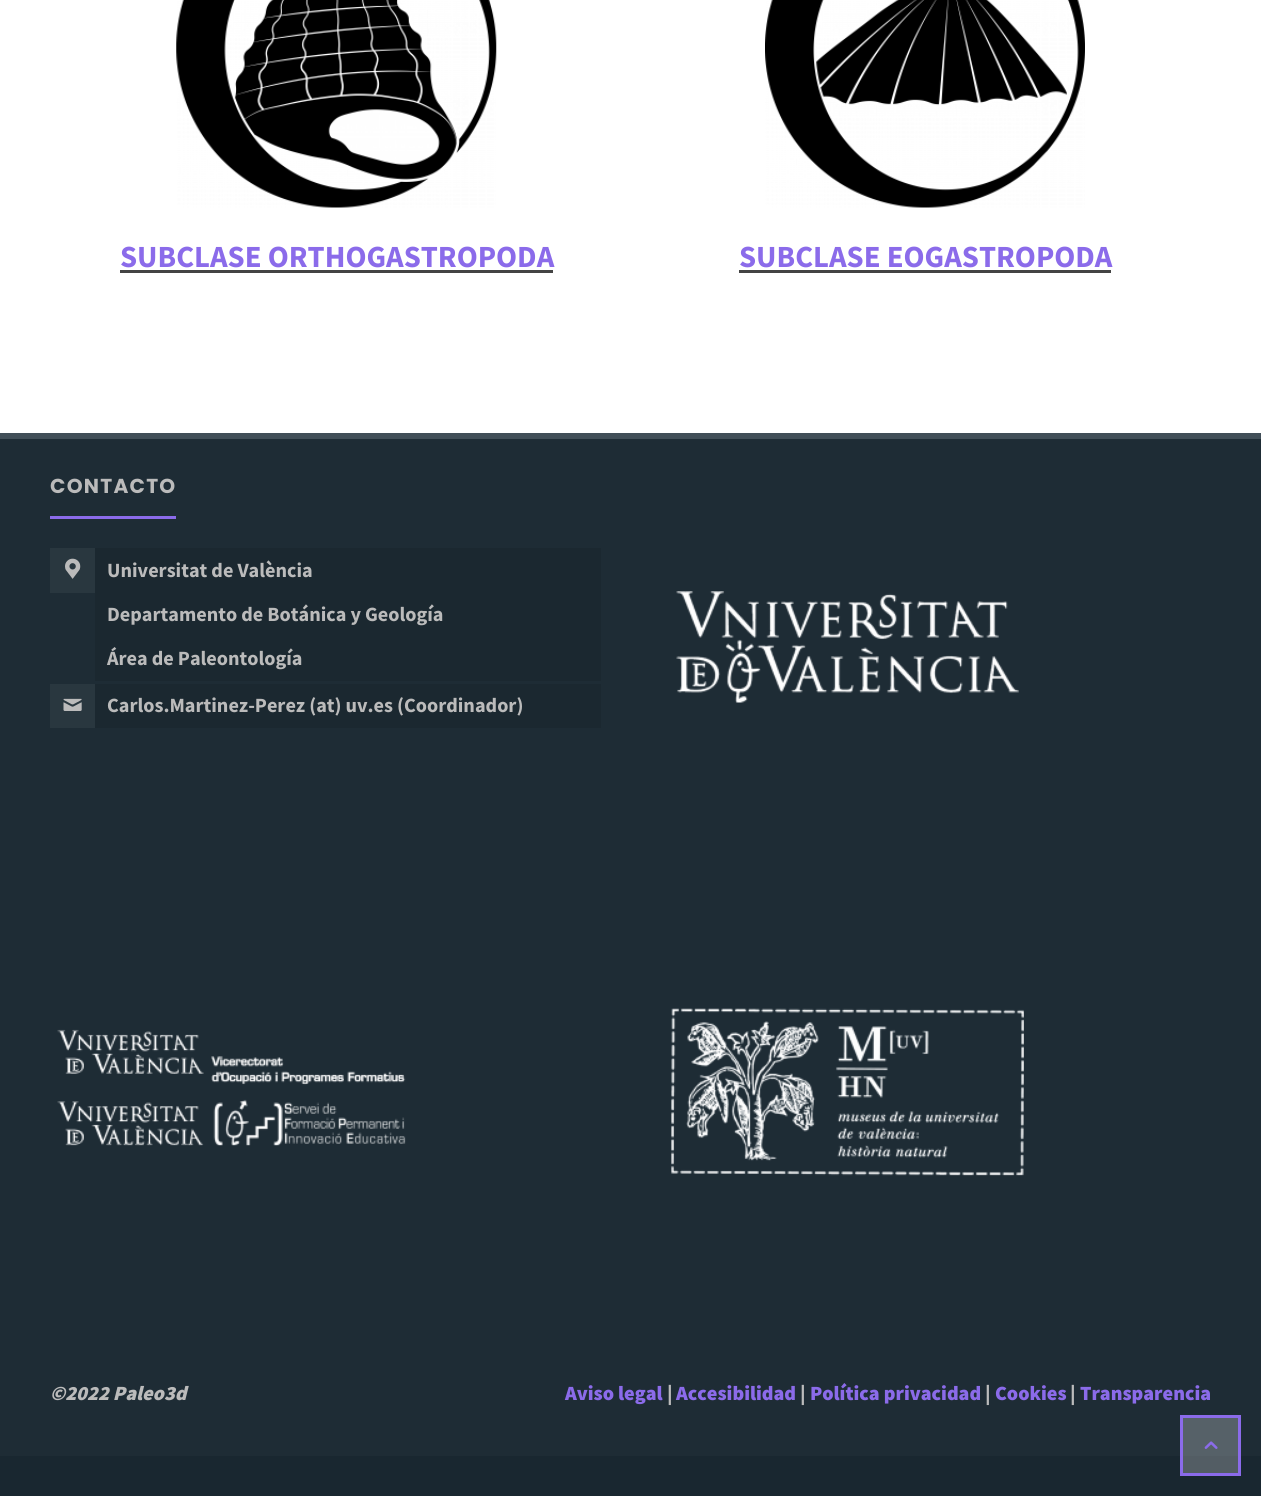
import math
import cairo

surface = cairo.ImageSurface(cairo.FORMAT_RGB24, 1261, 1496)
ctx = cairo.Context(surface)
options = cairo.FontOptions()
options.set_hint_metrics(cairo.HINT_METRICS_OFF)
options.set_hint_style(cairo.HINT_STYLE_NONE)
ctx.set_font_options(options)
ctx.set_miter_limit(4)


def set_color(code):
    ctx.set_source_rgb(*(v / 255 for v in bytes.fromhex(code[-6:])))


def draw_text(x, y, s, family, size, color, bold=False, italic=False):
    ctx.select_font_face(family, cairo.FONT_SLANT_ITALIC if italic else cairo.FONT_SLANT_NORMAL, cairo.FONT_WEIGHT_BOLD if bold else cairo.FONT_WEIGHT_NORMAL)
    ctx.set_font_size(size)
    set_color(color)
    ctx.move_to(x, y)
    ctx.show_text(s)


def draw_spaced(x, y, s, letter, word):
    ctx.move_to(x, y)
    for ch in s:
        ctx.show_text(ch)
        ctx.rel_move_to(letter + word * (ch == ' '), 0)


def fill_rect(x, y, w, h, color):
    set_color(color)
    ctx.rectangle(x, y, w, h)
    ctx.fill()


def draw_image(path, x, y, w, h):
    ctx.save()
    ctx.set_source_surface(cairo.ImageSurface.create_from_png(path), x, y)
    ctx.rectangle(x, y, w, h)
    ctx.fill()
    ctx.restore()


set_color("#1e2c35")
ctx.paint()
fill_rect(0, 0, 1261, 433, "#ffffff")
draw_image("assets/img1.png", 176, 0, 321, 208)
draw_text(120, 267, "SUBCLASE ORTHOGASTROPODA", "Source Sans Pro", 30.75, "#8b6bea", bold=True)
fill_rect(120, 270, 433, 3, "#444444")
draw_image("assets/img2.png", 765, 0, 320, 208)
draw_text(739, 267, "SUBCLASE EOGASTROPODA", "Source Sans Pro", 30.75, "#8b6bea", bold=True)
fill_rect(739, 270, 372, 3, "#444444")
fill_rect(0, 433, 1261, 6, "#414f58")
ctx.select_font_face("Poppins", cairo.FONT_SLANT_NORMAL, cairo.FONT_WEIGHT_BOLD)
ctx.set_font_size(20.2)
set_color("#bbbbbb")
draw_spaced(50, 493, "CONTACTO", 1.25, 0)
fill_rect(50, 516, 126, 3, "#8b6bea")
fill_rect(50, 548, 45, 45, "#29373f")
draw_image("assets/img3.png", 65, 558, 16, 21)
fill_rect(95, 548, 506, 133, "#1b2830")
draw_text(107, 577, "Universitat de València", "Source Sans Pro", 20.2, "#bbbbbb", bold=True)
draw_text(107, 621, "Departamento de Botánica y Geología", "Source Sans Pro", 20.2, "#bbbbbb", bold=True)
draw_text(107, 665, "Área de Paleontología", "Source Sans Pro", 20.2, "#bbbbbb", bold=True)
fill_rect(50, 684, 45, 44, "#29373f")
draw_image("assets/img4.png", 63, 698, 19, 13)
fill_rect(95, 684, 506, 44, "#1b2830")
draw_text(107, 712, "Carlos.Martinez-Perez (at) uv.es (Coordinador)", "Source Sans Pro", 20.2, "#bbbbbb", bold=True)
draw_image("assets/img5.png", 676, 591, 343, 112)
draw_image("assets/img6.png", 57, 1029, 349, 117)
draw_image("assets/img7.png", 671, 1008, 353, 168)
fill_rect(1183, 1418, 55, 38, "#566168")
draw_text(50, 1400, "©2022 Paleo3d", "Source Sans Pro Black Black", 20.2, "#bbbbbb", italic=True)
draw_text(565, 1400, "Aviso legal", "Source Sans Pro Black Black", 20.2, "#8b6bea")
draw_text(667, 1400, "|", "Source Sans Pro Black Black", 20.2, "#bbbbbb")
draw_text(676, 1400, "Accesibilidad", "Source Sans Pro Black Black", 20.2, "#8b6bea")
draw_text(800, 1400, "|", "Source Sans Pro Black Black", 20.2, "#bbbbbb")
draw_text(810, 1400, "Política privacidad", "Source Sans Pro Black Black", 20.2, "#8b6bea")
draw_text(985, 1400, "|", "Source Sans Pro Black Black", 20.2, "#bbbbbb")
draw_text(995, 1400, "Cookies", "Source Sans Pro Black Black", 20.2, "#8b6bea")
draw_text(1070, 1400, "|", "Source Sans Pro Black Black", 20.2, "#bbbbbb")
draw_text(1080, 1400, "Transparencia", "Source Sans Pro Black Black", 20.2, "#8b6bea")
fill_rect(0, 1456, 1261, 40, "#192730")
fill_rect(1183, 1456, 55, 17, "#535d64")
ctx.rectangle(1181.5, 1416.5, 58, 58)
set_color("#8b6bea")
ctx.set_line_width(3)
ctx.stroke()
draw_image("assets/img8.png", 1204, 1441, 14, 8)
surface.write_to_png("output.png")
